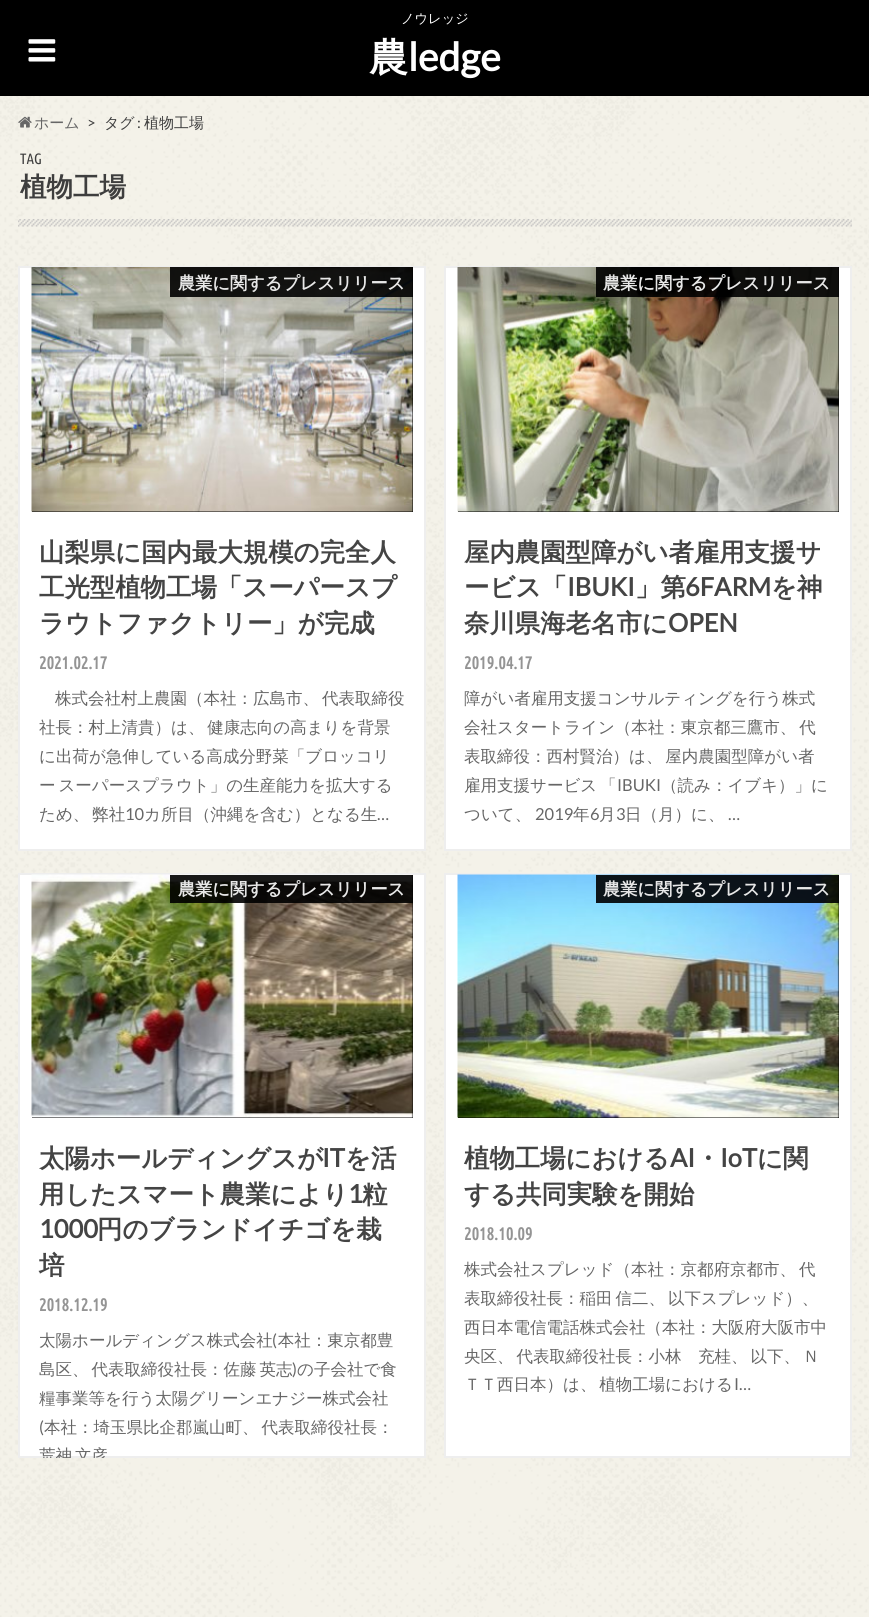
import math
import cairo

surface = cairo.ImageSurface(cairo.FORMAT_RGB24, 869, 1617)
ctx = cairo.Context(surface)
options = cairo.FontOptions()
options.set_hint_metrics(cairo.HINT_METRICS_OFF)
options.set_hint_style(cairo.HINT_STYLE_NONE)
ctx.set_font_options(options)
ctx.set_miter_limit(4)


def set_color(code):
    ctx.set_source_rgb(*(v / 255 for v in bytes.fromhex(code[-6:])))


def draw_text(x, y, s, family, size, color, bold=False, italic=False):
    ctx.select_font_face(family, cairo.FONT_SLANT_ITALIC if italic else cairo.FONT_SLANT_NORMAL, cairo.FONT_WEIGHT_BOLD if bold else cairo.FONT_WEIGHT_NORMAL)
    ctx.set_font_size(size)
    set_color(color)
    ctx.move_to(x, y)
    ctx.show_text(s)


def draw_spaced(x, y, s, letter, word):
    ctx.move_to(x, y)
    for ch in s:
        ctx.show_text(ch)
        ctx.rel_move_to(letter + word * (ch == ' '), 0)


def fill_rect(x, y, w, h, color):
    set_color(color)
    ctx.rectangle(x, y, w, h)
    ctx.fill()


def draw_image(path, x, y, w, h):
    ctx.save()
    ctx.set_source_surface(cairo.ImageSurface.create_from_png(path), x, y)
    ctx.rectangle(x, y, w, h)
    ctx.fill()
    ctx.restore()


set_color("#ffffff")
ctx.paint()
draw_image("assets/img1.png", 0, 96, 869, 1521)
fill_rect(0, 0, 869, 96, "#000000")
draw_text(401, 23, "ノウレッジ", "WenQuanYi Zen Hei Medium", 13.25, "#ffffff")
draw_image("assets/img2.png", 28, 39, 28, 23)
draw_text(369, 71, "農", "WenQuanYi Zen Hei", 39, "#ffffff", bold=True)
draw_text(408, 71, "ledge", "Lato", 39, "#ffffff", bold=True)
draw_image("assets/img3.png", 18, 116, 14, 12)
draw_text(34, 128, "ホーム", "WenQuanYi Zen Hei Medium", 15, "#666666")
draw_text(87, 128, ">", "Lato", 15, "#3e3e3e")
draw_text(104, 128, "タグ", "WenQuanYi Zen Hei Medium", 15, "#3e3e3e")
draw_text(137, 128, ":", "Lato", 15, "#3e3e3e")
draw_text(144, 128, "植物工場", "WenQuanYi Zen Hei Medium", 15, "#3e3e3e")
draw_image("assets/img4.png", 18, 219, 834, 8)
draw_text(20, 164, "TAG", "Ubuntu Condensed", 15, "#3e3e3e")
draw_text(20, 196, "植物工場", "WenQuanYi Zen Hei", 26.5, "#3e3e3e", bold=True)
set_color("#ffffff")
ctx.rectangle(19, 267, 406, 583)
ctx.fill_preserve()
set_color("#eeeeee")
ctx.stroke()
fill_rect(32, 267, 381, 245, "#000000")
draw_image("assets/img5.png", 31, 267, 382, 245)
ctx.set_source_rgba(0, 0, 0, 0.9)
ctx.rectangle(170, 267, 243, 30)
ctx.fill()
draw_text(178, 289, "農業に関するプレスリリース", "WenQuanYi Zen Hei", 17.2, "#e7e7e7", bold=True)
draw_text(39, 561, "山梨県に国内最大規模の完全人", "WenQuanYi Zen Hei", 25.4, "#444444", bold=True)
draw_text(39, 596, "工光型植物工場「スーパースプ", "WenQuanYi Zen Hei", 25.4, "#444444", bold=True)
draw_text(39, 632, "ラウトファクトリー」が完成", "WenQuanYi Zen Hei", 25.4, "#444444", bold=True)
draw_text(39, 669, "2021.02.17", "Ubuntu Condensed", 17.5, "#949494", bold=True)
ctx.select_font_face("WenQuanYi Zen Hei Medium")
ctx.set_font_size(16.5)
set_color("#666666")
draw_spaced(55, 704, "株式会社村上農園（本社：広島市、 代表取締役", 0, -2)
draw_spaced(39, 733, "社長：村上清貴）は、 健康志向の高まりを背景", 0, -2)
draw_text(39, 762, "に出荷が急伸している高成分野菜「ブロッコリ", "WenQuanYi Zen Hei Medium", 16.5, "#666666")
draw_spaced(39, 791, "ー スーパースプラウト」の生産能力を拡大する", 0, -2)
draw_spaced(39, 820, "ため、 弊社", 0, -2)
draw_text(125, 820, "10", "Lato", 16.5, "#666666")
draw_text(144, 820, "カ所目（沖縄を含む）となる生", "WenQuanYi Zen Hei Medium", 16.5, "#666666")
draw_text(377, 820, "…", "Lato", 16.5, "#666666")
set_color("#ffffff")
ctx.rectangle(445, 267, 406, 583)
ctx.fill_preserve()
set_color("#eeeeee")
ctx.stroke()
fill_rect(458, 267, 381, 245, "#000000")
draw_image("assets/img6.png", 457, 267, 382, 245)
ctx.set_source_rgba(0, 0, 0, 0.9)
ctx.rectangle(596, 267, 243, 30)
ctx.fill()
draw_text(603, 289, "農業に関するプレスリリース", "WenQuanYi Zen Hei", 17.2, "#e7e7e7", bold=True)
draw_text(464, 561, "屋内農園型障がい者雇用支援サ", "WenQuanYi Zen Hei", 25.4, "#444444", bold=True)
draw_text(464, 596, "ービス「", "WenQuanYi Zen Hei", 25.4, "#444444", bold=True)
draw_text(567, 596, "IBUKI", "Lato", 25.4, "#444444", bold=True)
draw_text(635, 596, "」第", "WenQuanYi Zen Hei", 25.4, "#444444", bold=True)
draw_text(685, 596, "6FARM", "Lato", 25.4, "#444444", bold=True)
draw_text(771, 596, "を神", "WenQuanYi Zen Hei", 25.4, "#444444", bold=True)
draw_text(464, 632, "奈川県海老名市に", "WenQuanYi Zen Hei", 25.4, "#444444", bold=True)
draw_text(668, 632, "OPEN", "Lato", 25.4, "#444444", bold=True)
draw_text(464, 669, "2019.04.17", "Ubuntu Condensed", 17.5, "#949494", bold=True)
draw_text(464, 704, "障がい者雇用支援コンサルティングを行う株式", "WenQuanYi Zen Hei Medium", 16.5, "#666666")
draw_spaced(464, 733, "会社スタートライン（本社：東京都三鷹市、 代", 0, -2)
draw_spaced(464, 762, "表取締役：西村賢治）は、 屋内農園型障がい者", 0, -2)
draw_spaced(464, 791, "雇用支援サービス 「", 0, -2)
draw_text(617, 791, "IBUKI", "Lato", 16.5, "#666666")
draw_text(661, 791, "（読み：イブキ）」に", "WenQuanYi Zen Hei Medium", 16.5, "#666666")
draw_text(464, 820, "ついて、", "WenQuanYi Zen Hei Medium", 16.5, "#666666")
draw_text(535, 820, "2019", "Lato", 16.5, "#666666")
draw_text(573, 820, "年", "WenQuanYi Zen Hei Medium", 16.5, "#666666")
draw_text(590, 820, "6", "Lato", 16.5, "#666666")
draw_text(599, 820, "月", "WenQuanYi Zen Hei Medium", 16.5, "#666666")
draw_text(616, 820, "3", "Lato", 16.5, "#666666")
draw_text(625, 820, "日（月）に、", "WenQuanYi Zen Hei Medium", 16.5, "#666666")
draw_text(728, 820, "…", "Lato", 16.5, "#666666")
set_color("#ffffff")
ctx.rectangle(19, 874, 406, 583)
ctx.fill_preserve()
set_color("#eeeeee")
ctx.stroke()
fill_rect(32, 875, 381, 243, "#000000")
draw_image("assets/img7.png", 31, 874, 382, 244)
ctx.set_source_rgba(0, 0, 0, 0.9)
ctx.rectangle(170, 875, 243, 28)
ctx.fill()
draw_text(178, 895, "農業に関するプレスリリース", "WenQuanYi Zen Hei", 17.2, "#e7e7e7", bold=True)
draw_text(39, 1167, "太陽ホールディングスが", "WenQuanYi Zen Hei", 25.4, "#444444", bold=True)
draw_text(322, 1167, "IT", "Lato", 25.4, "#444444", bold=True)
draw_text(345, 1167, "を活", "WenQuanYi Zen Hei", 25.4, "#444444", bold=True)
draw_text(39, 1203, "用したスマート農業により", "WenQuanYi Zen Hei", 25.4, "#444444", bold=True)
draw_text(348, 1203, "1", "Lato", 25.4, "#444444", bold=True)
draw_text(362, 1203, "粒", "WenQuanYi Zen Hei", 25.4, "#444444", bold=True)
draw_text(39, 1238, "1000", "Lato", 25.4, "#444444", bold=True)
draw_text(97, 1238, "円のブランドイチゴを栽", "WenQuanYi Zen Hei", 25.4, "#444444", bold=True)
draw_text(39, 1274, "培", "WenQuanYi Zen Hei", 25.4, "#444444", bold=True)
draw_text(39, 1311, "2018.12.19", "Ubuntu Condensed", 17.5, "#949494", bold=True)
draw_text(39, 1346, "太陽ホールディングス株式会社 本社：東京都豊", "WenQuanYi Zen Hei Medium", 16.5, "#666666")
draw_text(272, 1346, "(", "Lato", 16.5, "#666666")
ctx.select_font_face("WenQuanYi Zen Hei Medium")
draw_spaced(39, 1375, "島区、 代表取締役社長：佐藤 英志", 0, -2)
draw_text(292, 1375, ")", "Lato", 16.5, "#666666")
draw_text(297, 1375, "の子会社で食", "WenQuanYi Zen Hei Medium", 16.5, "#666666")
draw_text(39, 1404, "糧事業等を行う太陽グリーンエナジー株式会社", "WenQuanYi Zen Hei Medium", 16.5, "#666666")
draw_text(39, 1433, "(", "Lato", 16.5, "#666666")
ctx.select_font_face("WenQuanYi Zen Hei Medium")
draw_spaced(44, 1433, "本社：埼玉県比企郡嵐山町、 代表取締役社長：", 0, -2)
ctx.save()
ctx.rectangle(39, 1128, 366, 330)
ctx.clip()
draw_spaced(39, 1461, "荒神 文彦", 0, -2)
ctx.restore()
set_color("#ffffff")
ctx.rectangle(445, 874, 406, 583)
ctx.fill_preserve()
set_color("#eeeeee")
ctx.stroke()
fill_rect(458, 875, 381, 243, "#000000")
draw_image("assets/img8.png", 457, 874, 382, 244)
ctx.set_source_rgba(0, 0, 0, 0.9)
ctx.rectangle(596, 875, 243, 28)
ctx.fill()
draw_text(603, 895, "農業に関するプレスリリース", "WenQuanYi Zen Hei", 17.2, "#e7e7e7", bold=True)
draw_text(464, 1167, "植物工場における", "WenQuanYi Zen Hei", 25.4, "#444444", bold=True)
draw_text(670, 1167, "AI", "Lato", 25.4, "#444444", bold=True)
draw_text(695, 1167, "・", "WenQuanYi Zen Hei", 25.4, "#444444", bold=True)
draw_text(720, 1167, "IoT", "Lato", 25.4, "#444444", bold=True)
draw_text(757, 1167, "に関", "WenQuanYi Zen Hei", 25.4, "#444444", bold=True)
draw_text(464, 1203, "する共同実験を開始", "WenQuanYi Zen Hei", 25.4, "#444444", bold=True)
draw_text(464, 1240, "2018.10.09", "Ubuntu Condensed", 17.5, "#949494", bold=True)
ctx.select_font_face("WenQuanYi Zen Hei Medium")
ctx.set_font_size(16.5)
set_color("#666666")
draw_spaced(464, 1275, "株式会社スプレッド（本社：京都府京都市、 代", 0, -2)
draw_spaced(464, 1304, "表取締役社長：稲田 信二、 以下スプレッド）、", 0, -2)
draw_text(464, 1333, "西日本電信電話株式会社（本社：大阪府大阪市中", "WenQuanYi Zen Hei Medium", 16.5, "#666666")
draw_spaced(464, 1362, "央区、 代表取締役社長：小林　充桂、 以下、 Ｎ", 0, -2)
draw_spaced(464, 1390, "ＴＴ西日本）は、 植物工場における", 0, -2)
draw_text(734, 1390, "I…", "Lato", 16.5, "#666666")
surface.write_to_png("output.png")
